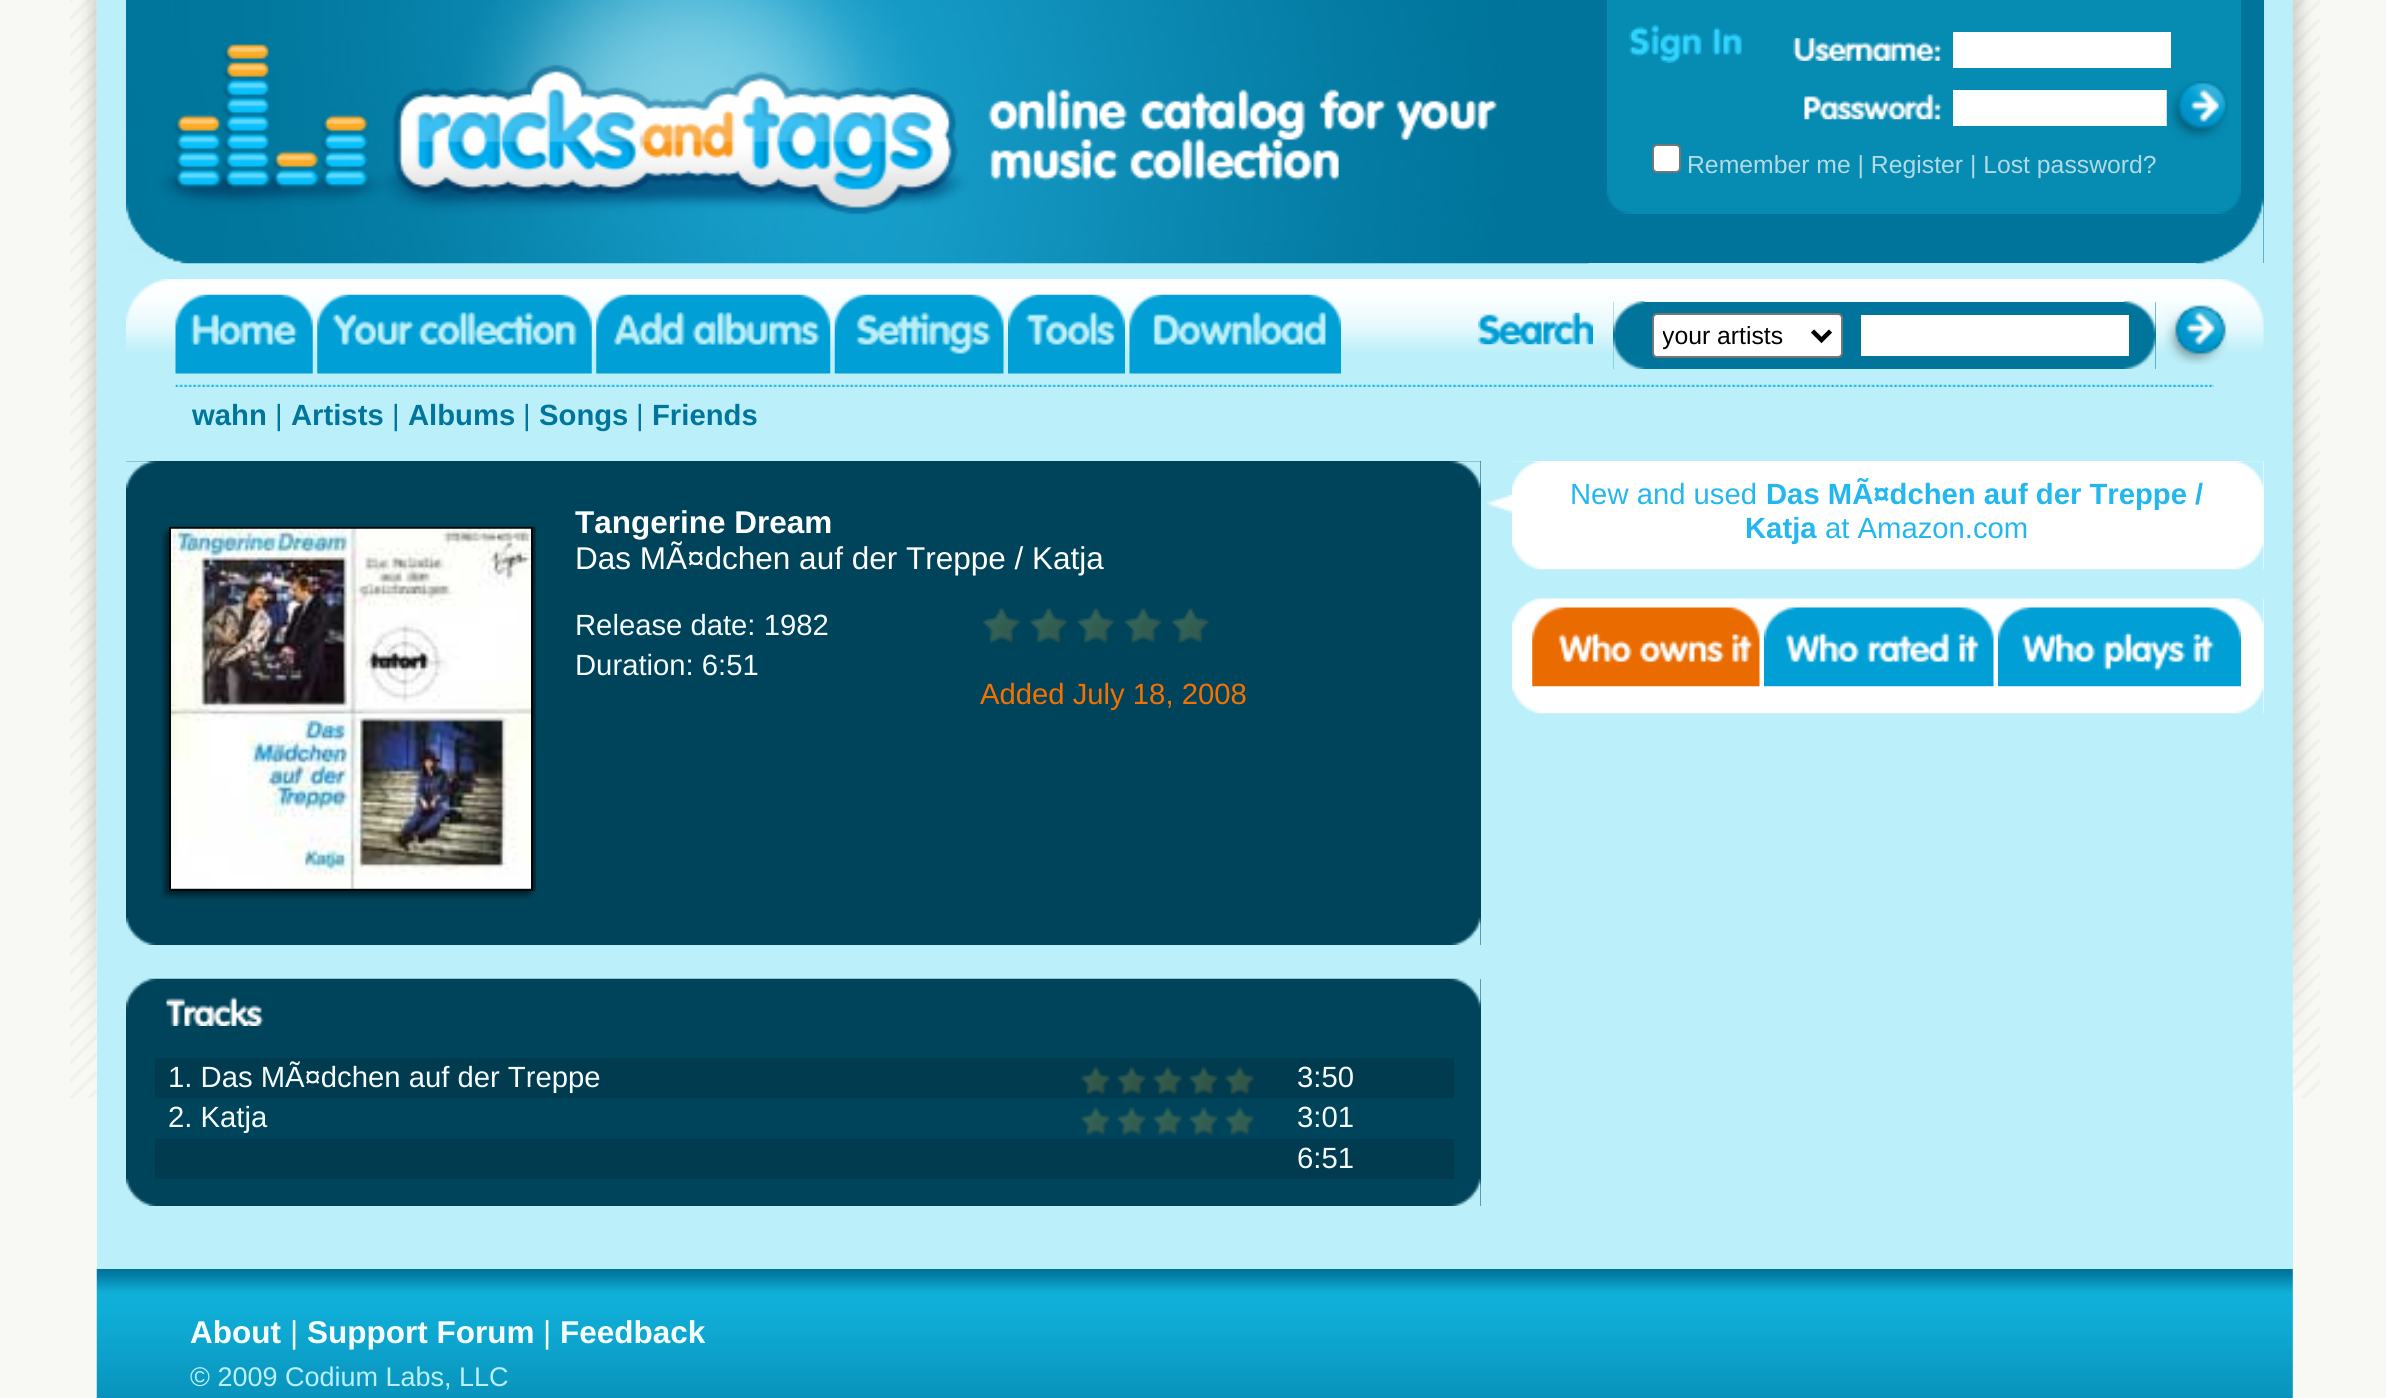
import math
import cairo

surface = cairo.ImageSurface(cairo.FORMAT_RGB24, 2386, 1398)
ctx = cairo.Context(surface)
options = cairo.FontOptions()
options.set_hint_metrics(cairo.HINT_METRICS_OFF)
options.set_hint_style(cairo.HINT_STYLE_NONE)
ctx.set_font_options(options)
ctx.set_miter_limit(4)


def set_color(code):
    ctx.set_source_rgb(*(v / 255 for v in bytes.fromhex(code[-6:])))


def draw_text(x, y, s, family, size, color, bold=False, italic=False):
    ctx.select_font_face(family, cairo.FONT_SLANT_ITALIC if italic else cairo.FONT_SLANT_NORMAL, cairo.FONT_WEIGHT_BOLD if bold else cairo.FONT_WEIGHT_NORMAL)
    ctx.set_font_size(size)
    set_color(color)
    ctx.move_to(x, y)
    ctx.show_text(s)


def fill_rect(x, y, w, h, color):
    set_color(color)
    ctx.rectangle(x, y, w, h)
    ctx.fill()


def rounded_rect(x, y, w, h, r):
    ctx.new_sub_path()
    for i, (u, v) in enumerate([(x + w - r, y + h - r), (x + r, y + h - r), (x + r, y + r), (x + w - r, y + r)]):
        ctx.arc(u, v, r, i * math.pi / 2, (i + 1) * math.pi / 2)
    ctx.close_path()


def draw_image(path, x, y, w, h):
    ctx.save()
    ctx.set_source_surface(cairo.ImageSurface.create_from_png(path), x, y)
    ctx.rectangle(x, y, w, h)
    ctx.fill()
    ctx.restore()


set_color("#f8f9f5")
ctx.paint()
draw_image("assets/img1.png", 70, 0, 27, 1098)
fill_rect(97, 0, 2196, 1398, "#bbeff9")
fill_rect(1588, 0, 676, 263, "#00749b")
draw_image("assets/img2.png", 2196, 198, 68, 66)
draw_image("assets/img3.png", 126, 0, 1463, 264)
fill_rect(1607, 0, 634, 214, "#068bb3")
draw_image("assets/img4.png", 1606, 189, 635, 25)
draw_image("assets/img5.png", 1629, 24, 113, 39)
draw_image("assets/img6.png", 1793, 38, 149, 23)
fill_rect(1953, 32, 218, 36, "#ffffff")
draw_image("assets/img7.png", 1804, 94, 138, 26)
fill_rect(1953, 90, 214, 36, "#ffffff")
draw_image("assets/img8.png", 2166, 81, 62, 59)
rounded_rect(1653, 145, 27, 27, 4)
ctx.fill_preserve()
set_color("#767676")
ctx.stroke()
draw_text(1687, 173, "Remember me | Register | Lost password?", "Liberation Sans", 24.75, "#b1dae5")
draw_image("assets/img9.png", 126, 279, 2138, 73)
draw_image("assets/img10.png", 175, 294, 138, 80)
draw_image("assets/img11.png", 317, 294, 275, 80)
draw_image("assets/img12.png", 596, 294, 235, 80)
draw_image("assets/img13.png", 834, 294, 170, 80)
draw_image("assets/img14.png", 1008, 294, 117, 80)
draw_image("assets/img15.png", 1129, 294, 212, 80)
draw_image("assets/img16.png", 1478, 312, 115, 33)
fill_rect(1613, 302, 543, 67, "#00749b")
draw_image("assets/img17.png", 2124, 301, 32, 68)
draw_image("assets/img18.png", 1613, 301, 32, 68)
set_color("#ffffff")
rounded_rect(1653, 314, 189, 43, 4)
ctx.fill_preserve()
set_color("#767676")
ctx.stroke()
ctx.new_path()
ctx.move_to(1812.5, 331)
ctx.line_to(1821.5, 340)
ctx.line_to(1830.5, 331)
set_color("#000000")
ctx.set_line_width(4.5)
ctx.stroke()
ctx.save()
ctx.rectangle(1663, 320, 142, 31)
ctx.clip()
draw_text(1662, 344, "your artists", "Liberation Sans", 24.75, "#000000")
ctx.restore()
fill_rect(1861, 315, 268, 41, "#ffffff")
draw_image("assets/img19.png", 2164, 305, 64, 60)
draw_image("assets/img20.png", 175, 384, 2039, 3)
draw_text(192, 425, "wahn", "Liberation Sans", 29.25, "#01759c", bold=True)
draw_text(275, 425, "|", "Liberation Sans", 29.25, "#01759c")
draw_text(291, 425, "Artists", "Liberation Sans", 29.25, "#01759c", bold=True)
draw_text(392, 425, "|", "Liberation Sans", 29.25, "#01759c")
draw_text(408, 425, "Albums", "Liberation Sans", 29.25, "#01759c", bold=True)
draw_text(523, 425, "|", "Liberation Sans", 29.25, "#01759c")
draw_text(539, 425, "Songs", "Liberation Sans", 29.25, "#01759c", bold=True)
draw_text(636, 425, "|", "Liberation Sans", 29.25, "#01759c")
draw_text(652, 425, "Friends", "Liberation Sans", 29.25, "#01759c", bold=True)
fill_rect(126, 461, 1355, 484, "#00445b")
draw_image("assets/img21.png", 126, 461, 1355, 28)
draw_image("assets/img22.png", 161, 526, 375, 374)
ctx.rectangle(170, 528, 362, 362)
set_color("#000608")
ctx.set_line_width(2)
ctx.stroke()
draw_image("assets/img23.png", 171, 528, 360, 361)
draw_text(575, 533, "Tangerine Dream", "Liberation Sans", 31.5, "#ffffff", bold=True)
draw_text(575, 569, "Das MÃ¤dchen auf der Treppe / Katja", "Liberation Sans", 31.5, "#ffffff")
draw_text(575, 635, "Release date: 1982", "Liberation Sans", 29.25, "#f6fdfe")
draw_text(575, 675, "Duration: 6:51", "Liberation Sans", 29.25, "#f6fdfe")
draw_image("assets/img24.png", 983, 607, 226, 37)
draw_text(980, 704, "Added July 18, 2008", "Liberation Sans", 29.25, "#f47000")
draw_image("assets/img25.png", 126, 918, 1355, 27)
fill_rect(126, 979, 1355, 227, "#00445b")
draw_image("assets/img26.png", 126, 978, 1355, 48)
fill_rect(155, 1058, 1299, 40, "#003b4f")
draw_text(168, 1087, "1. Das MÃ¤dchen auf der Treppe", "Liberation Sans", 29.25, "#f6fdfe")
draw_image("assets/img27.png", 1080, 1066, 174, 29)
draw_text(1297, 1087, "3:50", "Liberation Sans", 29.25, "#f6fdfe")
draw_text(168, 1127, "2. Katja", "Liberation Sans", 29.25, "#f6fdfe")
draw_image("assets/img28.png", 1080, 1107, 174, 29)
draw_text(1297, 1127, "3:01", "Liberation Sans", 29.25, "#f6fdfe")
fill_rect(155, 1139, 1299, 40, "#003b4f")
draw_text(1297, 1168, "6:51", "Liberation Sans", 29.25, "#f6fdfe")
draw_image("assets/img25.png", 126, 1179, 1355, 27)
fill_rect(1512, 461, 752, 108, "#ffffff")
draw_image("assets/img29.png", 1512, 461, 752, 27)
draw_image("assets/img30.png", 1487, 495, 25, 18)
draw_text(1570, 504, "New and used", "Liberation Sans", 29.25, "#22b7ef")
draw_text(1766, 504, "Das MÃ¤dchen auf der Treppe /", "Liberation Sans", 29.25, "#22b7ef", bold=True)
draw_image("assets/img31.png", 1512, 542, 752, 28)
draw_text(1745, 538, "Katja", "Liberation Sans", 29.25, "#22b7ef", bold=True)
draw_text(1825, 538, "at Amazon.com", "Liberation Sans", 29.25, "#22b7ef")
fill_rect(1512, 599, 752, 114, "#ffffff")
draw_image("assets/img32.png", 1512, 598, 752, 29)
draw_image("assets/img31.png", 1512, 686, 752, 28)
draw_image("assets/img33.png", 1532, 607, 228, 80)
draw_image("assets/img34.png", 1764, 607, 230, 80)
draw_image("assets/img35.png", 1998, 607, 243, 80)
draw_image("assets/img36.png", 96, 1269, 2197, 129)
draw_text(190, 1343, "About", "Liberation Sans", 31.5, "#f6fdfe", bold=True)
draw_text(290, 1343, "|", "Liberation Sans", 31.5, "#f6fdfe")
draw_text(307, 1343, "Support Forum", "Liberation Sans", 31.5, "#f6fdfe", bold=True)
draw_text(543, 1343, "|", "Liberation Sans", 31.5, "#f6fdfe")
draw_text(560, 1343, "Feedback", "Liberation Sans", 31.5, "#f6fdfe", bold=True)
draw_text(190, 1386, "© 2009 Codium Labs, LLC", "Liberation Sans", 27, "#bbeff9")
draw_image("assets/img37.png", 2292, 0, 28, 1098)
surface.write_to_png("output.png")
